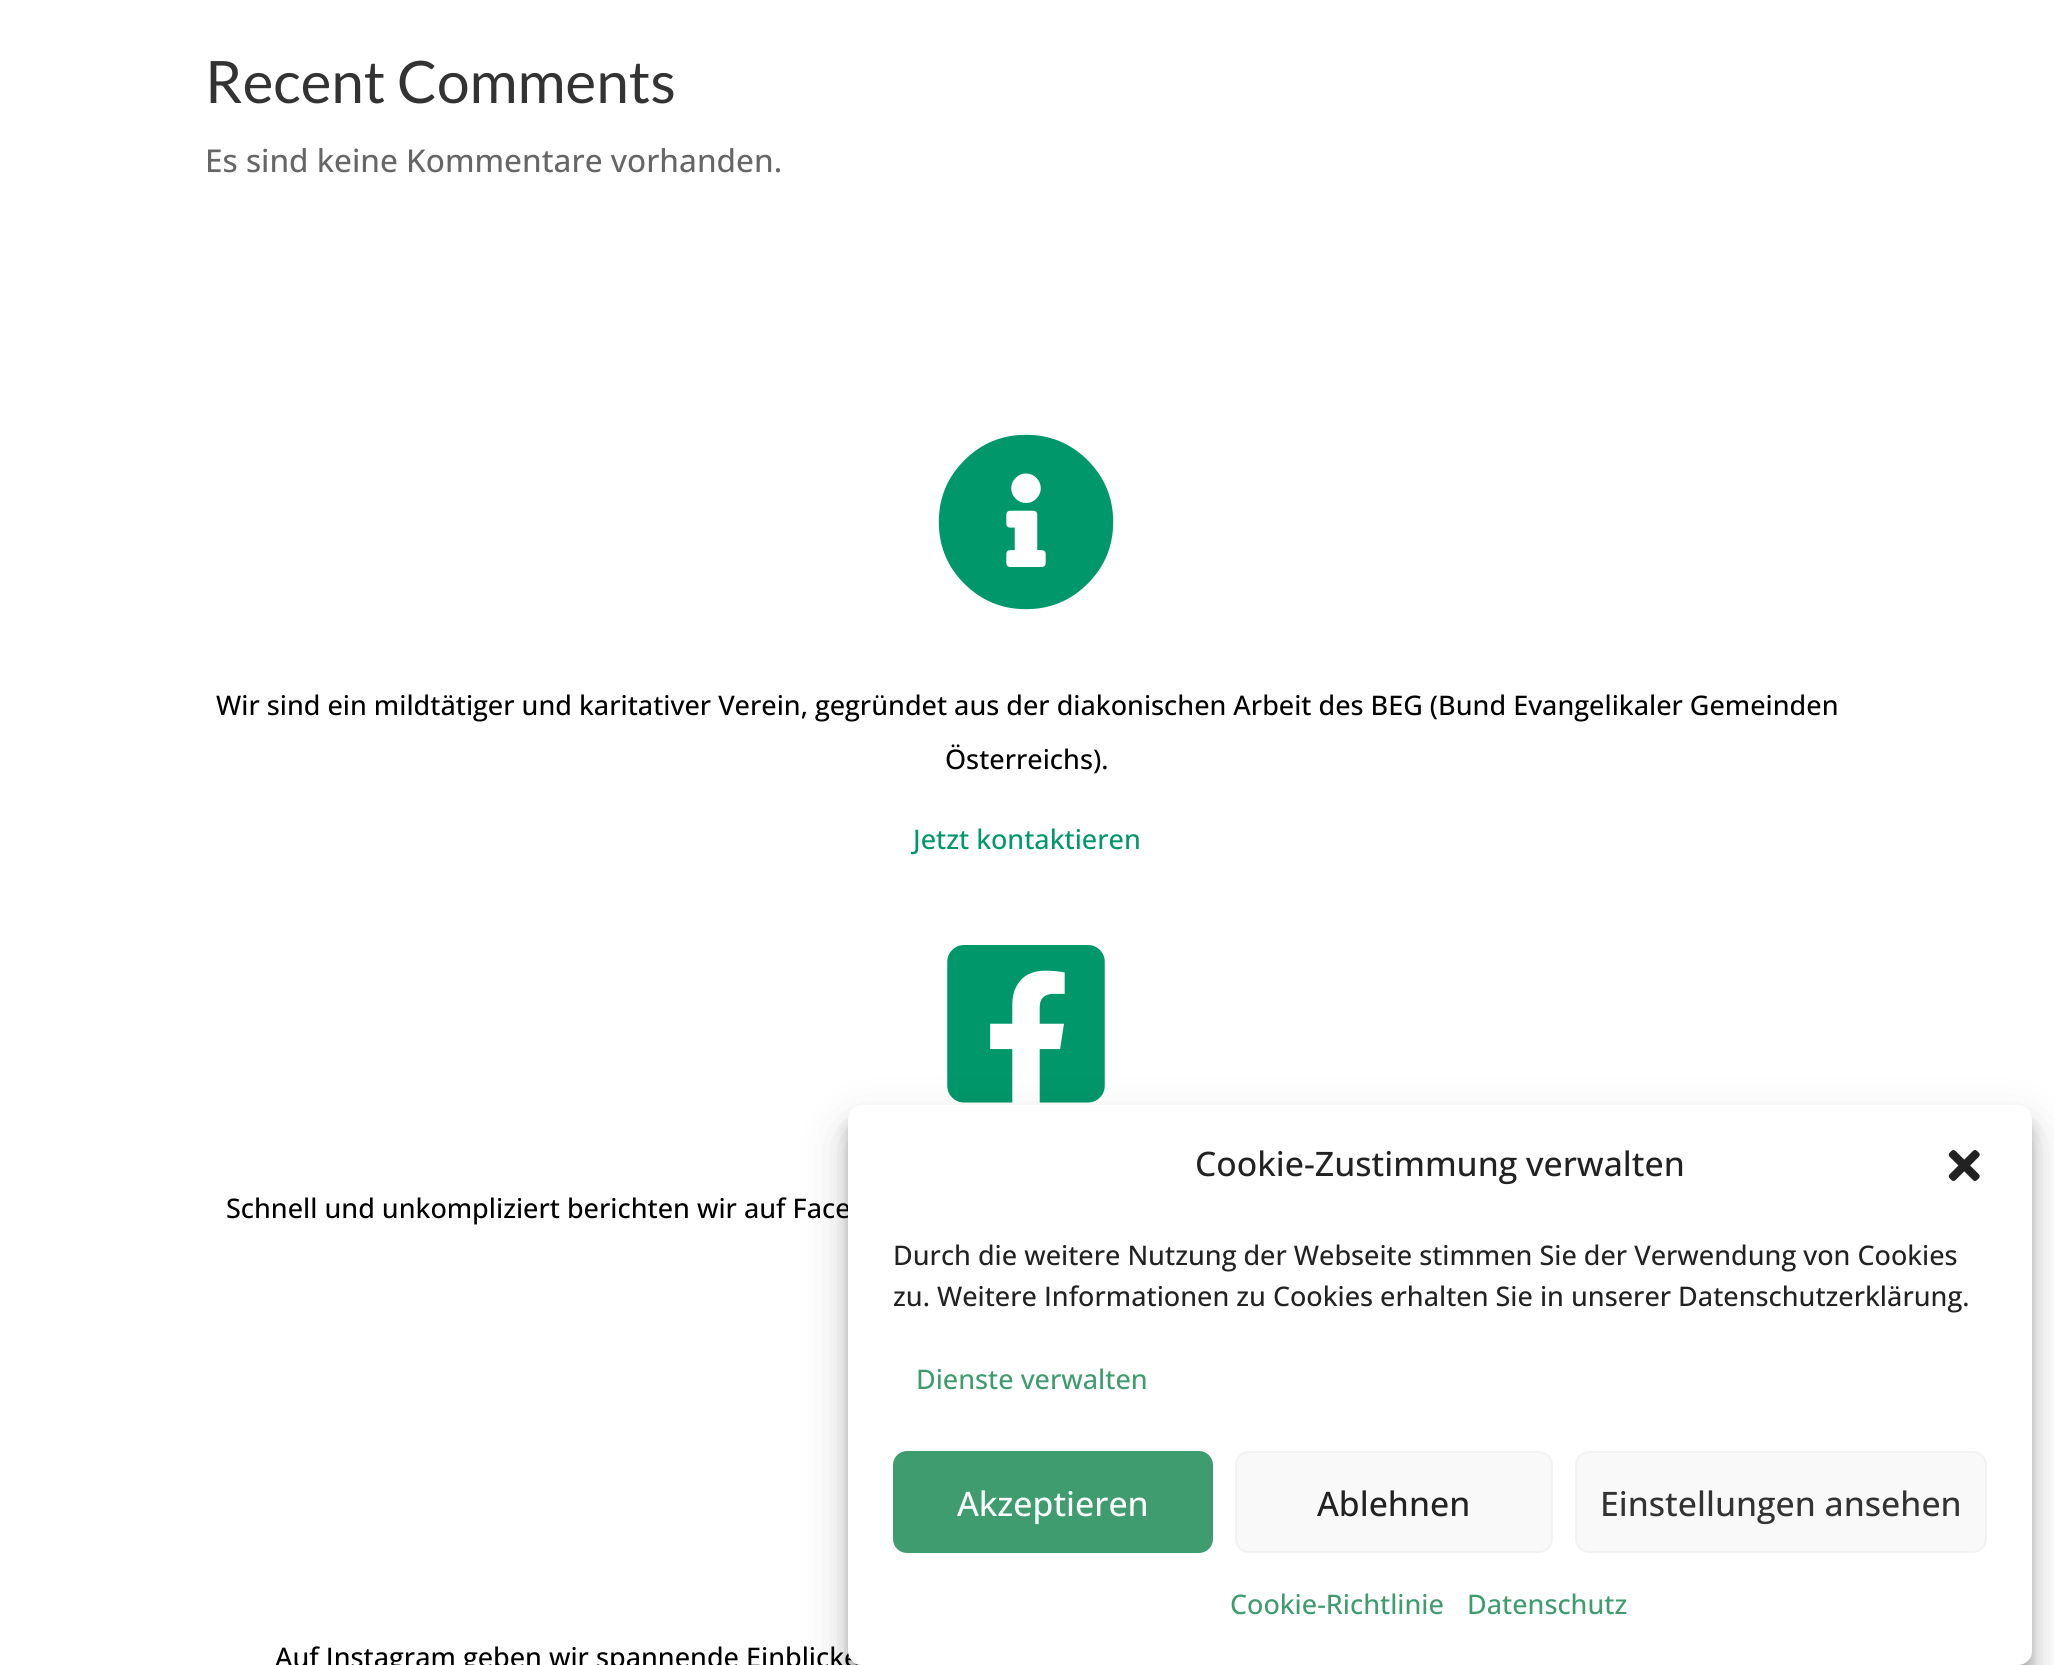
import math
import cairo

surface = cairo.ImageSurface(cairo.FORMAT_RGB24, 2054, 1665)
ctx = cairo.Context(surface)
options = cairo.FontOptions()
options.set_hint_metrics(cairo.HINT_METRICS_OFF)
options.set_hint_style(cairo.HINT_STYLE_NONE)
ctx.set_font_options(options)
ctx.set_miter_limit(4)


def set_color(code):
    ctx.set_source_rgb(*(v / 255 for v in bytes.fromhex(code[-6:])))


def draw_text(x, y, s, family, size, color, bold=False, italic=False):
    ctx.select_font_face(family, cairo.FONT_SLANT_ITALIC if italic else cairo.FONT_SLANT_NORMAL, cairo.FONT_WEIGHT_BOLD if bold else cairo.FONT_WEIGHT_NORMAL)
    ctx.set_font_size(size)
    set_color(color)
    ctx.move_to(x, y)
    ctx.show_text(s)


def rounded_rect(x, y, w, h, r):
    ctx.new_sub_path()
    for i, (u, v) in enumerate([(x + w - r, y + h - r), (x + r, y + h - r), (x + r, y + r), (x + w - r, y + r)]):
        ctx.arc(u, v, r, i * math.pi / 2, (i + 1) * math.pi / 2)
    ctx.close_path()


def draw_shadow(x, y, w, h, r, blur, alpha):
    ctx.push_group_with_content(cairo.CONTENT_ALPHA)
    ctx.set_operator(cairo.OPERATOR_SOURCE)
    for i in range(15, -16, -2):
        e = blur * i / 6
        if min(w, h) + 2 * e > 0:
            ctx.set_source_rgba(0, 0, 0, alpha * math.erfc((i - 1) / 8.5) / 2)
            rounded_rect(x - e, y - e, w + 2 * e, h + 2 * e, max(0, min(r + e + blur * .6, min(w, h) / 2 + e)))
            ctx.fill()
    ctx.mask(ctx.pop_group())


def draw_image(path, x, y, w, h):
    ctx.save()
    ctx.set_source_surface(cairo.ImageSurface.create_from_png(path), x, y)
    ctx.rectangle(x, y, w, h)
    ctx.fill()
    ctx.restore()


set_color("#ffffff")
ctx.paint()
draw_text(205, 103, "Recent Comments", "Lato", 58.5, "#333333")
draw_text(205, 172, "Es sind keine Kommentare vorhanden.", "Open Sans Medium", 31.5, "#666666")
draw_image("assets/img1.png", 938, 434, 176, 176)
draw_text(216, 715, "Wir sind ein mildtätiger und karitativer Verein, gegründet aus der diakonischen Arbeit des BEG (Bund Evangelikaler Gemeinden", "Open Sans Medium", 27, "#000000")
draw_text(945, 769, "Österreichs).", "Open Sans Medium", 27, "#000000")
draw_text(913, 849, "Jetzt kontaktieren", "Open Sans Medium", 27, "#00976a")
draw_image("assets/img2.png", 947, 945, 158, 158)
draw_text(226, 1218, "Schnell und unkompliziert berichten wir auf Face", "Open Sans Medium", 27, "#000000")
draw_text(275, 1667, "Auf Instagram geben wir spannende Einblicke", "Open Sans Medium", 27, "#000000")
set_color("#000000")
draw_shadow(848, 1118, 1184, 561, 14, 7, 0.23)
draw_shadow(848, 1127, 1184, 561, 14, 22.5, 0.19)
set_color("#ffffff")
rounded_rect(848, 1105, 1184, 560, 14)
ctx.fill()
draw_text(1195, 1176, "Cookie-Zustimmung verwalten", "Open Sans Medium", 33.75, "#222222")
draw_image("assets/img3.png", 1948, 1150, 32, 31)
draw_text(893, 1265, "Durch die weitere Nutzung der Webseite stimmen Sie der Verwendung von Cookies", "Open Sans Medium", 27, "#222222")
draw_text(893, 1306, "zu. Weitere Informationen zu Cookies erhalten Sie in unserer Datenschutzerklärung.", "Open Sans Medium", 27, "#222222")
draw_text(916, 1389, "Dienste verwalten", "Open Sans Medium", 27, "#3f9c6e")
rounded_rect(894, 1452, 318, 100, 13)
ctx.fill_preserve()
ctx.stroke()
draw_text(957, 1516, "Akzeptieren", "Open Sans Medium", 33.75, "#ffffff")
set_color("#f9f9f9")
rounded_rect(1236, 1452, 316, 100, 13)
ctx.fill_preserve()
set_color("#f2f2f2")
ctx.stroke()
draw_text(1317, 1516, "Ablehnen", "Open Sans Medium", 33.75, "#222222")
set_color("#f9f9f9")
rounded_rect(1576, 1452, 410, 100, 13)
ctx.fill_preserve()
set_color("#f2f2f2")
ctx.stroke()
draw_text(1600, 1516, "Einstellungen ansehen", "Open Sans Medium", 33.75, "#333333")
draw_text(1230, 1614, "Cookie-Richtlinie", "Open Sans Medium", 27, "#3f9c6e")
draw_text(1467, 1614, "Datenschutz", "Open Sans Medium", 27, "#3f9c6e")
surface.write_to_png("output.png")
